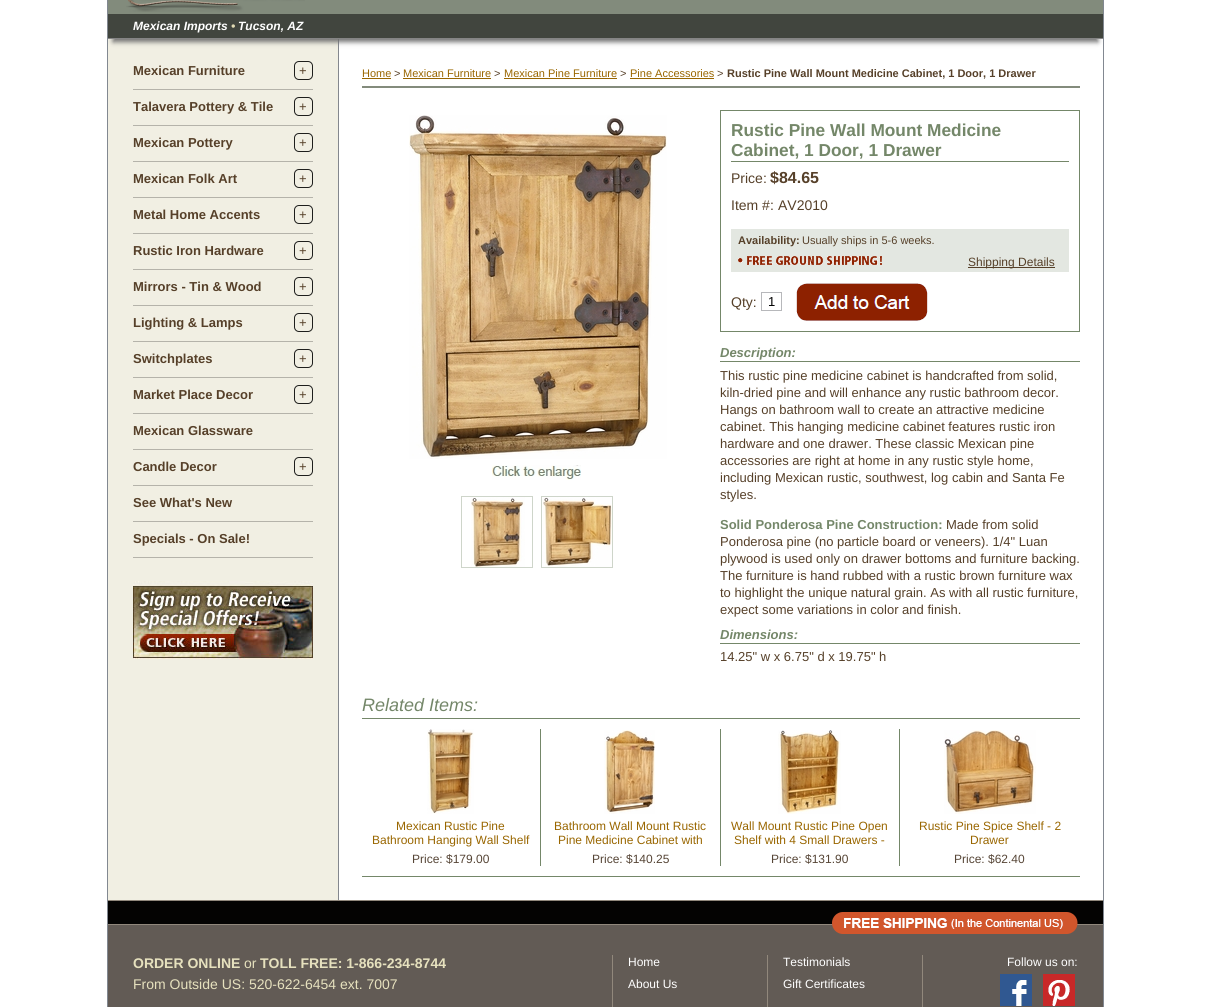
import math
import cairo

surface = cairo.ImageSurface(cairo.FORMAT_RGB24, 1210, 1007)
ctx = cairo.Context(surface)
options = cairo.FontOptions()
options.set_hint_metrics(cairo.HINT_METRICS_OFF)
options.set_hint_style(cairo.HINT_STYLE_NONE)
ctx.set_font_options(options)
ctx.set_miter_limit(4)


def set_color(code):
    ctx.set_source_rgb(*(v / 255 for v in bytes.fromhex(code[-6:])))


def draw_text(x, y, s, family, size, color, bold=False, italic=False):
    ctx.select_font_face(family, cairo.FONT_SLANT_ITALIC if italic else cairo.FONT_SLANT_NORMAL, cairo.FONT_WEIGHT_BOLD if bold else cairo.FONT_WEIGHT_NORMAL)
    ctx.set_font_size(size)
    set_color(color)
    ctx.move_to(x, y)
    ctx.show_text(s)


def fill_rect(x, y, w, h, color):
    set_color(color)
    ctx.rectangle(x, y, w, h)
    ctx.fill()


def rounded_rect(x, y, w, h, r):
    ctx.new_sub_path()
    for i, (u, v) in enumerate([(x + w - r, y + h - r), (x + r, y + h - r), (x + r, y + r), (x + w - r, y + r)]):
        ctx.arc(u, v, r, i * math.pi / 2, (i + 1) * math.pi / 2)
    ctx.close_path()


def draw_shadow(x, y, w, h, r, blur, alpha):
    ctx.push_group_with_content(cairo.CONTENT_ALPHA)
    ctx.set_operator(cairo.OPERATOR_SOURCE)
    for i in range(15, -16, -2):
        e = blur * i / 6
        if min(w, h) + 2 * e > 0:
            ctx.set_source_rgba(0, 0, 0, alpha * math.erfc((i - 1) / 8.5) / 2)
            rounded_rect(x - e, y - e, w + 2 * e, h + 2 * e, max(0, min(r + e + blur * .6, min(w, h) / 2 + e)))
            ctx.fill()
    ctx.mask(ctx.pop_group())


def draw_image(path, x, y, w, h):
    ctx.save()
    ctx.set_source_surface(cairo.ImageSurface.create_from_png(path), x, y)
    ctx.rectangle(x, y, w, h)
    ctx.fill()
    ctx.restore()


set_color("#ffffff")
ctx.paint()
ctx.rectangle(107.5, -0.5, 996, 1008)
set_color("#828891")
ctx.set_line_width(1)
ctx.stroke()
fill_rect(108, 39, 230, 861, "#f1efe3")
fill_rect(338, 39, 1, 861, "#84878e")
set_color("#707070")
draw_shadow(113, -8, 985, 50, 0, 2.5, 1)
fill_rect(108, 38, 995, 1, "#848484")
fill_rect(108, 0, 995, 14, "#828b7c")
draw_image("assets/img1.png", 126, 0, 179, 12)
fill_rect(108, 14, 995, 24, "#41453e")
draw_text(133, 30, "Mexican Imports", "Liberation Sans", 12, "#ffffff", bold=True, italic=True)
draw_text(231, 30, "•", "Liberation Sans", 12, "#e2dbb4", bold=True, italic=True)
draw_text(238, 30, "Tucson, AZ", "Liberation Sans", 12, "#ffffff", bold=True, italic=True)
fill_rect(133, 89, 180, 1, "#b5b3aa")
draw_text(133, 75, "Mexican Furniture", "Liberation Sans", 13, "#564029", bold=True)
rounded_rect(294.5, 61.5, 18, 18, 4.5)
set_color("#1e1e1c")
ctx.stroke()
draw_text(299, 75, "+", "Liberation Sans", 13, "#564029")
fill_rect(133, 125, 180, 1, "#b5b3aa")
draw_text(133, 111, "Talavera Pottery & Tile", "Liberation Sans", 13, "#564029", bold=True)
rounded_rect(294.5, 97.5, 18, 18, 4.5)
set_color("#1e1e1c")
ctx.stroke()
draw_text(299, 111, "+", "Liberation Sans", 13, "#564029")
fill_rect(133, 161, 180, 1, "#b5b3aa")
draw_text(133, 147, "Mexican Pottery", "Liberation Sans", 13, "#564029", bold=True)
rounded_rect(294.5, 133.5, 18, 18, 4.5)
set_color("#1e1e1c")
ctx.stroke()
draw_text(299, 147, "+", "Liberation Sans", 13, "#564029")
fill_rect(133, 197, 180, 1, "#b5b3aa")
draw_text(133, 183, "Mexican Folk Art", "Liberation Sans", 13, "#564029", bold=True)
rounded_rect(294.5, 169.5, 18, 18, 4.5)
set_color("#1e1e1c")
ctx.stroke()
draw_text(299, 183, "+", "Liberation Sans", 13, "#564029")
fill_rect(133, 233, 180, 1, "#b5b3aa")
draw_text(133, 219, "Metal Home Accents", "Liberation Sans", 13, "#564029", bold=True)
rounded_rect(294.5, 205.5, 18, 18, 4.5)
set_color("#1e1e1c")
ctx.stroke()
draw_text(299, 219, "+", "Liberation Sans", 13, "#564029")
fill_rect(133, 269, 180, 1, "#b5b3aa")
draw_text(133, 255, "Rustic Iron Hardware", "Liberation Sans", 13, "#564029", bold=True)
rounded_rect(294.5, 241.5, 18, 18, 4.5)
set_color("#1e1e1c")
ctx.stroke()
draw_text(299, 255, "+", "Liberation Sans", 13, "#564029")
fill_rect(133, 305, 180, 1, "#b5b3aa")
draw_text(133, 291, "Mirrors - Tin & Wood", "Liberation Sans", 13, "#564029", bold=True)
rounded_rect(294.5, 277.5, 18, 18, 4.5)
set_color("#1e1e1c")
ctx.stroke()
draw_text(299, 291, "+", "Liberation Sans", 13, "#564029")
fill_rect(133, 341, 180, 1, "#b5b3aa")
draw_text(133, 327, "Lighting & Lamps", "Liberation Sans", 13, "#564029", bold=True)
rounded_rect(294.5, 313.5, 18, 18, 4.5)
set_color("#1e1e1c")
ctx.stroke()
draw_text(299, 327, "+", "Liberation Sans", 13, "#564029")
fill_rect(133, 377, 180, 1, "#b5b3aa")
draw_text(133, 363, "Switchplates", "Liberation Sans", 13, "#564029", bold=True)
rounded_rect(294.5, 349.5, 18, 18, 4.5)
set_color("#1e1e1c")
ctx.stroke()
draw_text(299, 363, "+", "Liberation Sans", 13, "#564029")
fill_rect(133, 413, 180, 1, "#b5b3aa")
draw_text(133, 399, "Market Place Decor", "Liberation Sans", 13, "#564029", bold=True)
rounded_rect(294.5, 385.5, 18, 18, 4.5)
set_color("#1e1e1c")
ctx.stroke()
draw_text(299, 399, "+", "Liberation Sans", 13, "#564029")
fill_rect(133, 449, 180, 1, "#b5b3aa")
draw_text(133, 435, "Mexican Glassware", "Liberation Sans", 13, "#564029", bold=True)
fill_rect(133, 485, 180, 1, "#b5b3aa")
draw_text(133, 471, "Candle Decor", "Liberation Sans", 13, "#564029", bold=True)
rounded_rect(294.5, 457.5, 18, 18, 4.5)
set_color("#1e1e1c")
ctx.stroke()
draw_text(299, 471, "+", "Liberation Sans", 13, "#564029")
fill_rect(133, 521, 180, 1, "#b5b3aa")
draw_text(133, 507, "See What's New", "Liberation Sans", 13, "#564029", bold=True)
fill_rect(133, 557, 180, 1, "#b5b3aa")
draw_text(133, 543, "Specials - On Sale!", "Liberation Sans", 13, "#564029", bold=True)
draw_image("assets/img2.png", 133, 581, 180, 78)
fill_rect(362, 86, 718, 2, "#838b7c")
draw_text(362, 77, "Home", "Liberation Sans", 11, "#996600")
fill_rect(362, 78, 29, 1, "#996600")
draw_text(394, 77, ">", "Liberation Sans", 11, "#564029")
draw_text(403, 77, "Mexican Furniture", "Liberation Sans", 11, "#996600")
fill_rect(403, 78, 88, 1, "#996600")
draw_text(494, 77, ">", "Liberation Sans", 11, "#564029")
draw_text(504, 77, "Mexican Pine Furniture", "Liberation Sans", 11, "#996600")
fill_rect(504, 78, 113, 1, "#996600")
draw_text(620, 77, ">", "Liberation Sans", 11, "#564029")
draw_text(630, 77, "Pine Accessories", "Liberation Sans", 11, "#996600")
fill_rect(630, 78, 84, 1, "#996600")
draw_text(717, 77, ">", "Liberation Sans", 11, "#564029")
draw_text(727, 77, "Rustic Pine Wall Mount Medicine Cabinet, 1 Door, 1 Drawer", "Liberation Sans", 11, "#564029", bold=True)
draw_image("assets/img3.png", 409, 115, 258, 344)
draw_image("assets/img4.png", 492, 465, 89, 15)
ctx.rectangle(461.5, 496.5, 71, 71)
set_color("#ced5ca")
ctx.stroke()
ctx.rectangle(541.5, 496.5, 71, 71)
ctx.stroke()
draw_image("assets/img5.png", 471, 497, 54, 70)
draw_image("assets/img6.png", 542, 497, 70, 70)
ctx.rectangle(720.5, 110.5, 359, 221)
set_color("#748769")
ctx.stroke()
fill_rect(731, 161, 338, 1, "#748769")
draw_text(731, 136, "Rustic Pine Wall Mount Medicine", "Liberation Sans", 17.3, "#748769", bold=True)
draw_text(731, 156, "Cabinet, 1 Door, 1 Drawer", "Liberation Sans", 17.3, "#748769", bold=True)
draw_text(731, 183, "Price:", "Liberation Sans", 14, "#564029")
draw_text(770, 183, "$84.65", "Liberation Sans", 16, "#564029", bold=True)
draw_text(731, 210, "Item #:", "Liberation Sans", 14, "#564029")
draw_text(778, 210, "AV2010", "Liberation Sans", 14, "#564029")
fill_rect(731, 229, 338, 43, "#e3e7e1")
draw_text(738, 244, "Availability:", "Liberation Sans", 11, "#564029", bold=True)
draw_text(802, 244, "Usually ships in 5-6 weeks.", "Liberation Sans", 11, "#564029")
draw_image("assets/img7.png", 738, 256, 144, 9)
fill_rect(968, 267, 87, 1, "#564029")
draw_text(968, 266, "Shipping Details", "Liberation Sans", 12, "#564029")
draw_text(731, 307, "Qty:", "Liberation Sans", 14, "#564029")
ctx.rectangle(761.5, 292.5, 20, 18)
set_color("#b7b8bb")
ctx.stroke()
draw_text(768, 306, "1", "Liberation Sans", 13, "#000000")
draw_image("assets/img8.png", 796, 283, 132, 38)
fill_rect(720, 361, 360, 1, "#748769")
draw_text(720, 357, "Description:", "Liberation Sans", 13, "#748769", bold=True, italic=True)
draw_text(720, 380, "This rustic pine medicine cabinet is handcrafted from solid,", "Liberation Sans", 13, "#564029")
draw_text(720, 397, "kiln-dried pine and will enhance any rustic bathroom decor.", "Liberation Sans", 13, "#564029")
draw_text(720, 414, "Hangs on bathroom wall to create an attractive medicine", "Liberation Sans", 13, "#564029")
draw_text(720, 431, "cabinet. This hanging medicine cabinet features rustic iron", "Liberation Sans", 13, "#564029")
draw_text(720, 448, "hardware and one drawer. These classic Mexican pine", "Liberation Sans", 13, "#564029")
draw_text(720, 465, "accessories are right at home in any rustic style home,", "Liberation Sans", 13, "#564029")
draw_text(720, 482, "including Mexican rustic, southwest, log cabin and Santa Fe", "Liberation Sans", 13, "#564029")
draw_text(720, 499, "styles.", "Liberation Sans", 13, "#564029")
draw_text(720, 529, "Solid Ponderosa Pine Construction:", "Liberation Sans", 13, "#748769", bold=True)
draw_text(946, 529, "Made from solid", "Liberation Sans", 13, "#564029")
draw_text(720, 546, "Ponderosa pine (no particle board or veneers). 1/4\" Luan", "Liberation Sans", 13, "#564029")
draw_text(720, 563, "plywood is used only on drawer bottoms and furniture backing.", "Liberation Sans", 13, "#564029")
draw_text(720, 580, "The furniture is hand rubbed with a rustic brown furniture wax", "Liberation Sans", 13, "#564029")
draw_text(720, 597, "to highlight the unique natural grain. As with all rustic furniture,", "Liberation Sans", 13, "#564029")
draw_text(720, 614, "expect some variations in color and finish.", "Liberation Sans", 13, "#564029")
fill_rect(720, 643, 360, 1, "#748769")
draw_text(720, 639, "Dimensions:", "Liberation Sans", 13, "#748769", bold=True, italic=True)
draw_text(720, 661, "14.25\" w x 6.75\" d x 19.75\" h", "Liberation Sans", 13, "#564029")
draw_text(362, 711, "Related Items:", "Liberation Sans", 18, "#748769", italic=True)
fill_rect(362, 718, 718, 1, "#748769")
fill_rect(362, 876, 718, 1, "#748769")
fill_rect(540, 729, 1, 137, "#748769")
draw_image("assets/img9.png", 427, 729, 47, 85)
draw_text(396, 830, "Mexican Rustic Pine", "Liberation Sans", 12, "#996600")
draw_text(372, 844, "Bathroom Hanging Wall Shelf", "Liberation Sans", 12, "#996600")
draw_text(412, 863, "Price: $179.00", "Liberation Sans", 12, "#564536")
fill_rect(720, 729, 1, 137, "#748769")
draw_image("assets/img10.png", 604, 730, 51, 84)
draw_text(554, 830, "Bathroom Wall Mount Rustic", "Liberation Sans", 12, "#996600")
draw_text(558, 844, "Pine Medicine Cabinet with", "Liberation Sans", 12, "#996600")
draw_text(592, 863, "Price: $140.25", "Liberation Sans", 12, "#564536")
fill_rect(899, 729, 1, 137, "#748769")
draw_image("assets/img11.png", 778, 730, 63, 84)
draw_text(731, 830, "Wall Mount Rustic Pine Open", "Liberation Sans", 12, "#996600")
draw_text(734, 844, "Shelf with 4 Small Drawers -", "Liberation Sans", 12, "#996600")
draw_text(771, 863, "Price: $131.90", "Liberation Sans", 12, "#564536")
draw_image("assets/img12.png", 944, 730, 92, 84)
draw_text(919, 830, "Rustic Pine Spice Shelf - 2", "Liberation Sans", 12, "#996600")
draw_text(970, 844, "Drawer", "Liberation Sans", 12, "#996600")
draw_text(954, 863, "Price: $62.40", "Liberation Sans", 12, "#564536")
fill_rect(108, 901, 995, 23, "#040302")
fill_rect(108, 900, 995, 1, "#91887c")
fill_rect(108, 924, 995, 1, "#91887c")
fill_rect(108, 925, 995, 82, "#625b55")
draw_image("assets/img13.png", 832, 912, 246, 22)
fill_rect(612, 955, 1, 52, "#91887c")
draw_text(133, 968, "ORDER ONLINE", "Liberation Sans", 14, "#e6e1be", bold=True)
draw_text(244, 968, "or", "Liberation Sans", 14, "#e6e1be")
draw_text(260, 968, "TOLL FREE: 1-866-234-8744", "Liberation Sans", 14, "#e6e1be", bold=True)
draw_text(133, 989, "From Outside US: 520-622-6454 ext. 7007", "Liberation Sans", 14, "#e6e1be")
fill_rect(767, 955, 1, 52, "#91887c")
draw_text(628, 966, "Home", "Liberation Sans", 12, "#ffffff")
draw_text(628, 988, "About Us", "Liberation Sans", 12, "#ffffff")
fill_rect(922, 955, 1, 52, "#91887c")
draw_text(783, 966, "Testimonials", "Liberation Sans", 12, "#ffffff")
draw_text(783, 988, "Gift Certificates", "Liberation Sans", 12, "#ffffff")
draw_text(1007, 966, "Follow us on:", "Liberation Sans", 12, "#ffffff")
draw_image("assets/img14.png", 1000, 974, 32, 32)
draw_image("assets/img15.png", 1043, 974, 32, 32)
surface.write_to_png("output.png")
